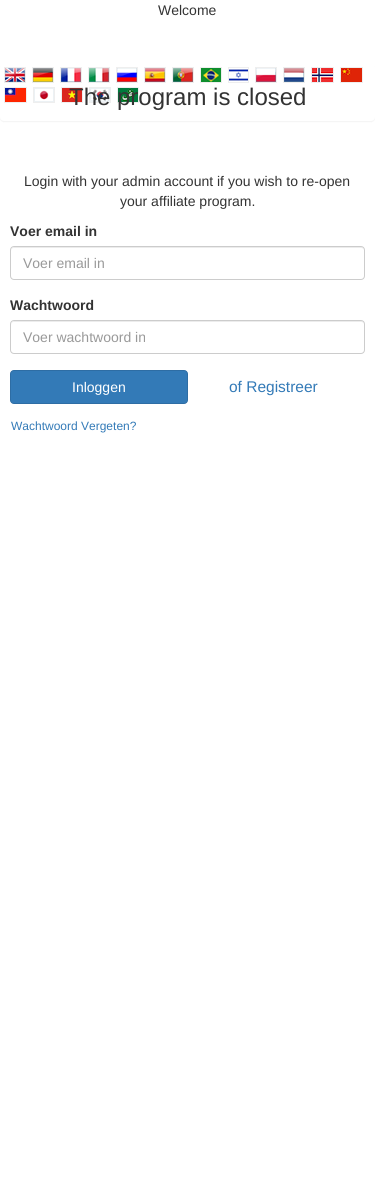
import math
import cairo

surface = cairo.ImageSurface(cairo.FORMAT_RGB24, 375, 1202)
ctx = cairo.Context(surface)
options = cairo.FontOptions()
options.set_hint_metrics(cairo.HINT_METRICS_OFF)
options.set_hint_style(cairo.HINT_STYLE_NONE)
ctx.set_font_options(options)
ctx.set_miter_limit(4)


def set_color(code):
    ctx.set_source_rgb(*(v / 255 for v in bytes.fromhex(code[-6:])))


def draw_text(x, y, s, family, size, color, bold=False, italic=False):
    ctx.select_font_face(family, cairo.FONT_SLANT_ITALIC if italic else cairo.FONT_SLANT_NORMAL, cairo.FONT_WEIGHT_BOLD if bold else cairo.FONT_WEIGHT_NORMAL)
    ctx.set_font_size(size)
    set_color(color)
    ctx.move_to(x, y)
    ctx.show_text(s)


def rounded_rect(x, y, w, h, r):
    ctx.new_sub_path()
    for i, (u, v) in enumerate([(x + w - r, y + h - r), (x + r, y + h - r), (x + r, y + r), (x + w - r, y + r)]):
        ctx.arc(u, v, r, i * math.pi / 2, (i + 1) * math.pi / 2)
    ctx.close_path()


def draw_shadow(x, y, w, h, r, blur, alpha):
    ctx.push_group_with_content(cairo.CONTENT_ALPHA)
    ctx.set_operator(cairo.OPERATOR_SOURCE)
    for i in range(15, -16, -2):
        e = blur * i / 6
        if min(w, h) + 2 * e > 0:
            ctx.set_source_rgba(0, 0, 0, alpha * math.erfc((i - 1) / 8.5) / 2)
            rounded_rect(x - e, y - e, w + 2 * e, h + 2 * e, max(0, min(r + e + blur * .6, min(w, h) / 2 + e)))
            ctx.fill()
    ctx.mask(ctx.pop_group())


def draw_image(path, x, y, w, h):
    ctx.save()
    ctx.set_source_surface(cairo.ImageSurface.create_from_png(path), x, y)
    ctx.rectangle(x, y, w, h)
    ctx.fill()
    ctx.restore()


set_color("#ffffff")
ctx.paint()
draw_text(158, 15, "Welcome", "Liberation Sans", 14, "#333333")
set_color("#000000")
draw_shadow(0, 65, 375, 57, 4, 0.5, 0.05)
set_color("#ffffff")
rounded_rect(0, 64, 375, 57, 4)
ctx.fill()
ctx.rectangle(4.5, 67.5, 21, 15)
set_color("#eeeeee")
ctx.set_line_width(1)
ctx.stroke()
draw_image("assets/img1.png", 5, 68, 20, 14)
ctx.rectangle(32.5, 67.5, 21, 15)
ctx.stroke()
draw_image("assets/img2.png", 33, 68, 20, 14)
ctx.rectangle(60.5, 67.5, 21, 15)
ctx.stroke()
draw_image("assets/img3.png", 61, 68, 20, 14)
ctx.rectangle(88.5, 67.5, 21, 15)
ctx.stroke()
draw_image("assets/img4.png", 89, 68, 20, 14)
ctx.rectangle(116.5, 67.5, 21, 15)
ctx.stroke()
draw_image("assets/img5.png", 117, 68, 20, 14)
ctx.rectangle(144.5, 67.5, 21, 15)
ctx.stroke()
draw_image("assets/img6.png", 145, 68, 20, 14)
ctx.rectangle(172.5, 67.5, 21, 15)
ctx.stroke()
draw_image("assets/img7.png", 173, 68, 20, 14)
ctx.rectangle(200.5, 67.5, 21, 15)
ctx.stroke()
draw_image("assets/img8.png", 201, 68, 20, 14)
ctx.rectangle(228.5, 67.5, 20, 15)
ctx.stroke()
draw_image("assets/img9.png", 229, 69, 19, 12)
ctx.rectangle(255.5, 67.5, 21, 15)
ctx.stroke()
draw_image("assets/img10.png", 256, 68, 20, 14)
ctx.rectangle(283.5, 67.5, 21, 15)
ctx.stroke()
draw_image("assets/img11.png", 284, 68, 20, 14)
ctx.rectangle(311.5, 67.5, 22, 15)
ctx.stroke()
draw_image("assets/img12.png", 312, 68, 21, 14)
ctx.rectangle(340.5, 67.5, 22, 15)
ctx.stroke()
draw_image("assets/img13.png", 341, 68, 21, 14)
ctx.rectangle(4.5, 87.5, 22, 15)
ctx.stroke()
draw_image("assets/img14.png", 5, 88, 21, 14)
ctx.rectangle(33.5, 87.5, 21, 15)
ctx.stroke()
draw_image("assets/img15.png", 34, 88, 20, 14)
ctx.rectangle(61.5, 87.5, 21, 15)
ctx.stroke()
draw_image("assets/img16.png", 62, 88, 20, 14)
ctx.rectangle(89.5, 87.5, 21, 15)
ctx.stroke()
draw_image("assets/img17.png", 90, 88, 20, 14)
ctx.rectangle(117.5, 87.5, 21, 15)
ctx.stroke()
draw_image("assets/img18.png", 118, 88, 20, 14)
draw_text(69, 105, "The program is closed", "Liberation Sans", 24, "#333333")
draw_text(24, 186, "Login with your admin account if you wish to re-open", "Liberation Sans", 14, "#333333")
draw_text(120, 206, "your affiliate program.", "Liberation Sans", 14, "#333333")
draw_text(10, 236, "Voer email in", "Liberation Sans", 14, "#333333", bold=True)
set_color("#ececec")
ctx.new_path()
ctx.move_to(14, 248)
ctx.line_to(361, 248)
ctx.curve_to(363, 248, 364, 249, 364, 251)
ctx.curve_to(364, 249, 363, 247, 361, 247)
ctx.line_to(14, 247)
ctx.line_to(12, 248)
ctx.line_to(11, 251)
ctx.curve_to(11, 249, 12, 248, 14, 248)
ctx.close_path()
ctx.fill()
rounded_rect(10.5, 246.5, 354, 33, 3.5)
set_color("#cccccc")
ctx.stroke()
draw_text(23, 268, "Voer email in", "Liberation Sans", 14, "#999999")
draw_text(10, 310, "Wachtwoord", "Liberation Sans", 14, "#333333", bold=True)
set_color("#ececec")
ctx.new_path()
ctx.move_to(14, 322)
ctx.line_to(361, 322)
ctx.curve_to(363, 322, 364, 323, 364, 325)
ctx.curve_to(364, 323, 363, 321, 361, 321)
ctx.line_to(14, 321)
ctx.line_to(12, 322)
ctx.line_to(11, 325)
ctx.curve_to(11, 323, 12, 322, 14, 322)
ctx.close_path()
ctx.fill()
rounded_rect(10.5, 320.5, 354, 33, 3.5)
set_color("#cccccc")
ctx.stroke()
draw_text(23, 342, "Voer wachtwoord in", "Liberation Sans", 14, "#999999")
set_color("#337ab7")
rounded_rect(10.5, 370.5, 177, 33, 3.5)
ctx.fill_preserve()
set_color("#2e6da4")
ctx.stroke()
draw_text(72, 392, "Inloggen", "Liberation Sans", 14, "#ffffff")
draw_text(229, 392, "of Registreer", "Liberation Sans", 15.5, "#337ab7")
draw_text(11, 430, "Wachtwoord Vergeten?", "Liberation Sans", 12, "#337ab7")
surface.write_to_png("output.png")
